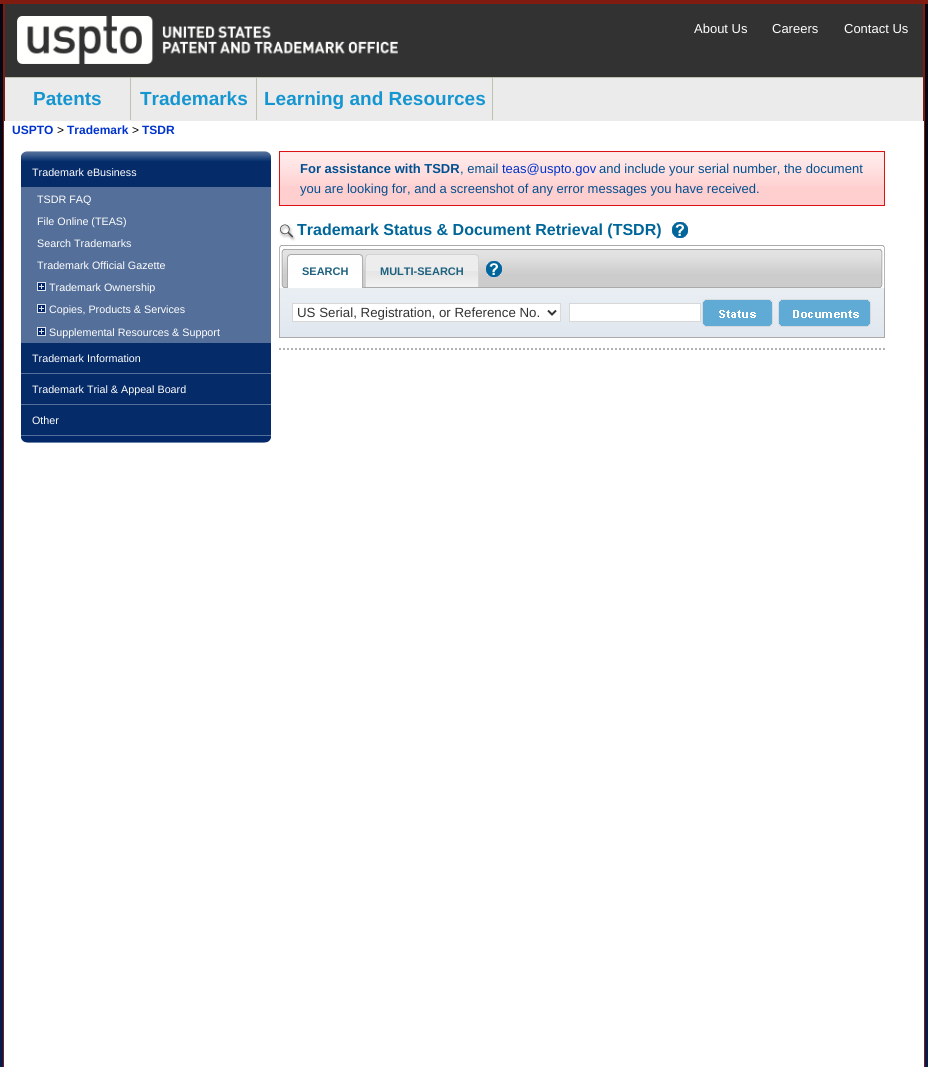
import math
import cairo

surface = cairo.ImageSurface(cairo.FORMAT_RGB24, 928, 1067)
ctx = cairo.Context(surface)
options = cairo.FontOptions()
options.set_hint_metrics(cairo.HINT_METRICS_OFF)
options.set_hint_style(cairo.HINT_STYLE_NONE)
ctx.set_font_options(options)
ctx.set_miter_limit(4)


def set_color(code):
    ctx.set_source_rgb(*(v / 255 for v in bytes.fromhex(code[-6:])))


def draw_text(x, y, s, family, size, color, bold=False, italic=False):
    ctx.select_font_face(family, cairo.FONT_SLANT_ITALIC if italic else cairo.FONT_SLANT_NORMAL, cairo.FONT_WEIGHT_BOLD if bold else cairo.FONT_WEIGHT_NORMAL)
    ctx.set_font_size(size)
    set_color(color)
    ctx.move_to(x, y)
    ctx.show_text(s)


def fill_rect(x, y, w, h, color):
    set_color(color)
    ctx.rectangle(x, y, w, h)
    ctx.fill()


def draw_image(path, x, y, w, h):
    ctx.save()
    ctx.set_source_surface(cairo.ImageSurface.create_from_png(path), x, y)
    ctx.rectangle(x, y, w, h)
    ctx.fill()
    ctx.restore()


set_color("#031d4e")
ctx.paint()
draw_image("assets/img1.png", 0, 0, 928, 649)
fill_rect(4, 121, 920, 946, "#ffffff")
fill_rect(924, 0, 1, 1067, "#7f1b10")
fill_rect(3, 0, 1, 1067, "#7f1b10")
fill_rect(4, 0, 920, 4, "#7f1b10")
fill_rect(5, 4, 918, 73, "#323232")
fill_rect(923, 4, 1, 73, "#7f1b10")
fill_rect(4, 4, 1, 73, "#7f1b10")
draw_image("assets/img2.png", 17, 16, 381, 48)
draw_text(694, 33, "About Us", "Liberation Sans", 13, "#ffffff")
draw_text(772, 33, "Careers", "Liberation Sans", 13, "#ffffff")
draw_text(844, 33, "Contact Us", "Liberation Sans", 13, "#ffffff")
fill_rect(5, 78, 918, 43, "#ebebeb")
fill_rect(4, 77, 920, 1, "#c1c1af")
fill_rect(923, 77, 1, 44, "#7f1b10")
fill_rect(4, 77, 1, 44, "#7f1b10")
fill_rect(130, 78, 1, 42, "#c1c1af")
draw_text(33, 105, "Patents", "Liberation Sans", 19, "#1596d1", bold=True)
fill_rect(256, 78, 1, 42, "#c1c1af")
draw_text(140, 105, "Trademarks", "Liberation Sans", 19, "#1596d1", bold=True)
fill_rect(492, 78, 1, 42, "#c1c1af")
draw_text(264, 105, "Learning and Resources", "Liberation Sans", 19, "#1596d1", bold=True)
draw_text(12, 134, "USPTO", "Liberation Sans", 12, "#0033cc", bold=True)
draw_text(57, 134, ">", "Liberation Sans", 12, "#000000")
draw_text(67, 134, "Trademark", "Liberation Sans", 12, "#0033cc", bold=True)
draw_text(132, 134, ">", "Liberation Sans", 12, "#000000")
draw_text(142, 134, "TSDR", "Liberation Sans", 12, "#0033cc", bold=True)
draw_image("assets/img3.png", 21, 151, 250, 6)
fill_rect(21, 187, 250, 156, "#546f9a")
fill_rect(21, 161, 250, 26, "#052b69")
draw_image("assets/img4.png", 21, 157, 250, 4)
draw_text(32, 176, "Trademark eBusiness", "Liberation Sans", 10.75, "#ffffff")
draw_text(37, 203, "TSDR FAQ", "Liberation Sans", 10.75, "#ffffff")
draw_text(37, 225, "File Online (TEAS)", "Liberation Sans", 10.75, "#ffffff")
draw_text(37, 247, "Search Trademarks", "Liberation Sans", 10.75, "#ffffff")
draw_text(37, 269, "Trademark Official Gazette", "Liberation Sans", 10.75, "#ffffff")
draw_image("assets/img5.png", 37, 282, 9, 9)
draw_text(49, 291, "Trademark Ownership", "Liberation Sans", 10.75, "#ffffff")
draw_image("assets/img5.png", 37, 304, 9, 9)
draw_text(49, 313, "Copies, Products & Services", "Liberation Sans", 10.75, "#ffffff")
draw_image("assets/img5.png", 37, 327, 9, 9)
draw_text(49, 336, "Supplemental Resources & Support", "Liberation Sans", 10.75, "#ffffff")
fill_rect(21, 343, 250, 30, "#052b69")
fill_rect(21, 373, 250, 1, "#546f9a")
draw_text(32, 362, "Trademark Information", "Liberation Sans", 10.75, "#ffffff")
fill_rect(21, 374, 250, 30, "#052b69")
fill_rect(21, 404, 250, 1, "#546f9a")
draw_text(32, 393, "Trademark Trial & Appeal Board", "Liberation Sans", 10.75, "#ffffff")
fill_rect(21, 405, 250, 30, "#052b69")
fill_rect(21, 435, 250, 1, "#546f9a")
draw_text(32, 424, "Other", "Liberation Sans", 10.75, "#ffffff")
draw_image("assets/img6.png", 21, 436, 250, 7)
fill_rect(280, 186, 604, 19, "#ffcece")
draw_image("assets/img7.png", 280, 152, 604, 34)
ctx.rectangle(279.5, 151.5, 605, 54)
set_color("#df1115")
ctx.set_line_width(1)
ctx.stroke()
draw_text(300, 173, "For assistance with TSDR", "Liberation Sans", 13, "#005091", bold=True)
draw_text(460, 173, ", email", "Liberation Sans", 13, "#005091")
draw_text(502, 173, "teas@uspto.gov", "Liberation Sans", 13, "#0033cc")
draw_text(599, 173, "and include your serial number, the document", "Liberation Sans", 13, "#005091")
draw_text(300, 193, "you are looking for, and a screenshot of any error messages you have received.", "Liberation Sans", 13, "#005091")
draw_image("assets/img8.png", 279, 224, 17, 17)
draw_text(297, 235, "Trademark Status & Document Retrieval (TSDR)", "Liberation Sans", 16, "#006699", bold=True)
draw_image("assets/img9.png", 672, 222, 16, 16)
ctx.new_path()
ctx.move_to(279, 349)
ctx.line_to(885, 349)
set_color("#b2b2b2")
ctx.set_line_width(2)
ctx.set_dash([2, 2])
ctx.stroke()
draw_image("assets/img10.png", 279, 245, 606, 43)
draw_image("assets/img11.png", 291, 254, 72, 34)
draw_image("assets/img12.png", 287, 254, 4, 34)
draw_text(302, 275, "SEARCH", "Liberation Sans", 11, "#1d617e", bold=True)
draw_image("assets/img13.png", 368, 254, 111, 33)
draw_image("assets/img14.png", 365, 254, 3, 33)
draw_text(380, 275, "MULTI-SEARCH", "Liberation Sans", 11, "#1d617e", bold=True)
draw_image("assets/img15.png", 486, 261, 16, 16)
draw_image("assets/img16.png", 280, 288, 604, 49)
fill_rect(884, 288, 1, 50, "#aaaaaa")
fill_rect(279, 337, 606, 1, "#aaaaaa")
fill_rect(279, 288, 1, 50, "#aaaaaa")
set_color("#ffffff")
ctx.rectangle(292.5, 303.5, 268, 18)
ctx.fill_preserve()
set_color("#d8d8d8")
ctx.set_line_width(1)
ctx.set_dash([])
ctx.stroke()
ctx.new_path()
ctx.move_to(548, 310.5)
ctx.line_to(552, 314.5)
ctx.line_to(556, 310.5)
set_color("#333333")
ctx.set_line_width(2)
ctx.stroke()
draw_text(297, 317, "US Serial, Registration, or Reference No.", "Liberation Sans", 13.3, "#333333")
set_color("#ffffff")
ctx.rectangle(569.5, 303.5, 131, 18)
ctx.fill_preserve()
set_color("#d8d8d8")
ctx.set_line_width(1)
ctx.stroke()
draw_image("assets/img17.png", 702, 299, 71, 28)
draw_image("assets/img18.png", 778, 299, 93, 28)
surface.write_to_png("output.png")
